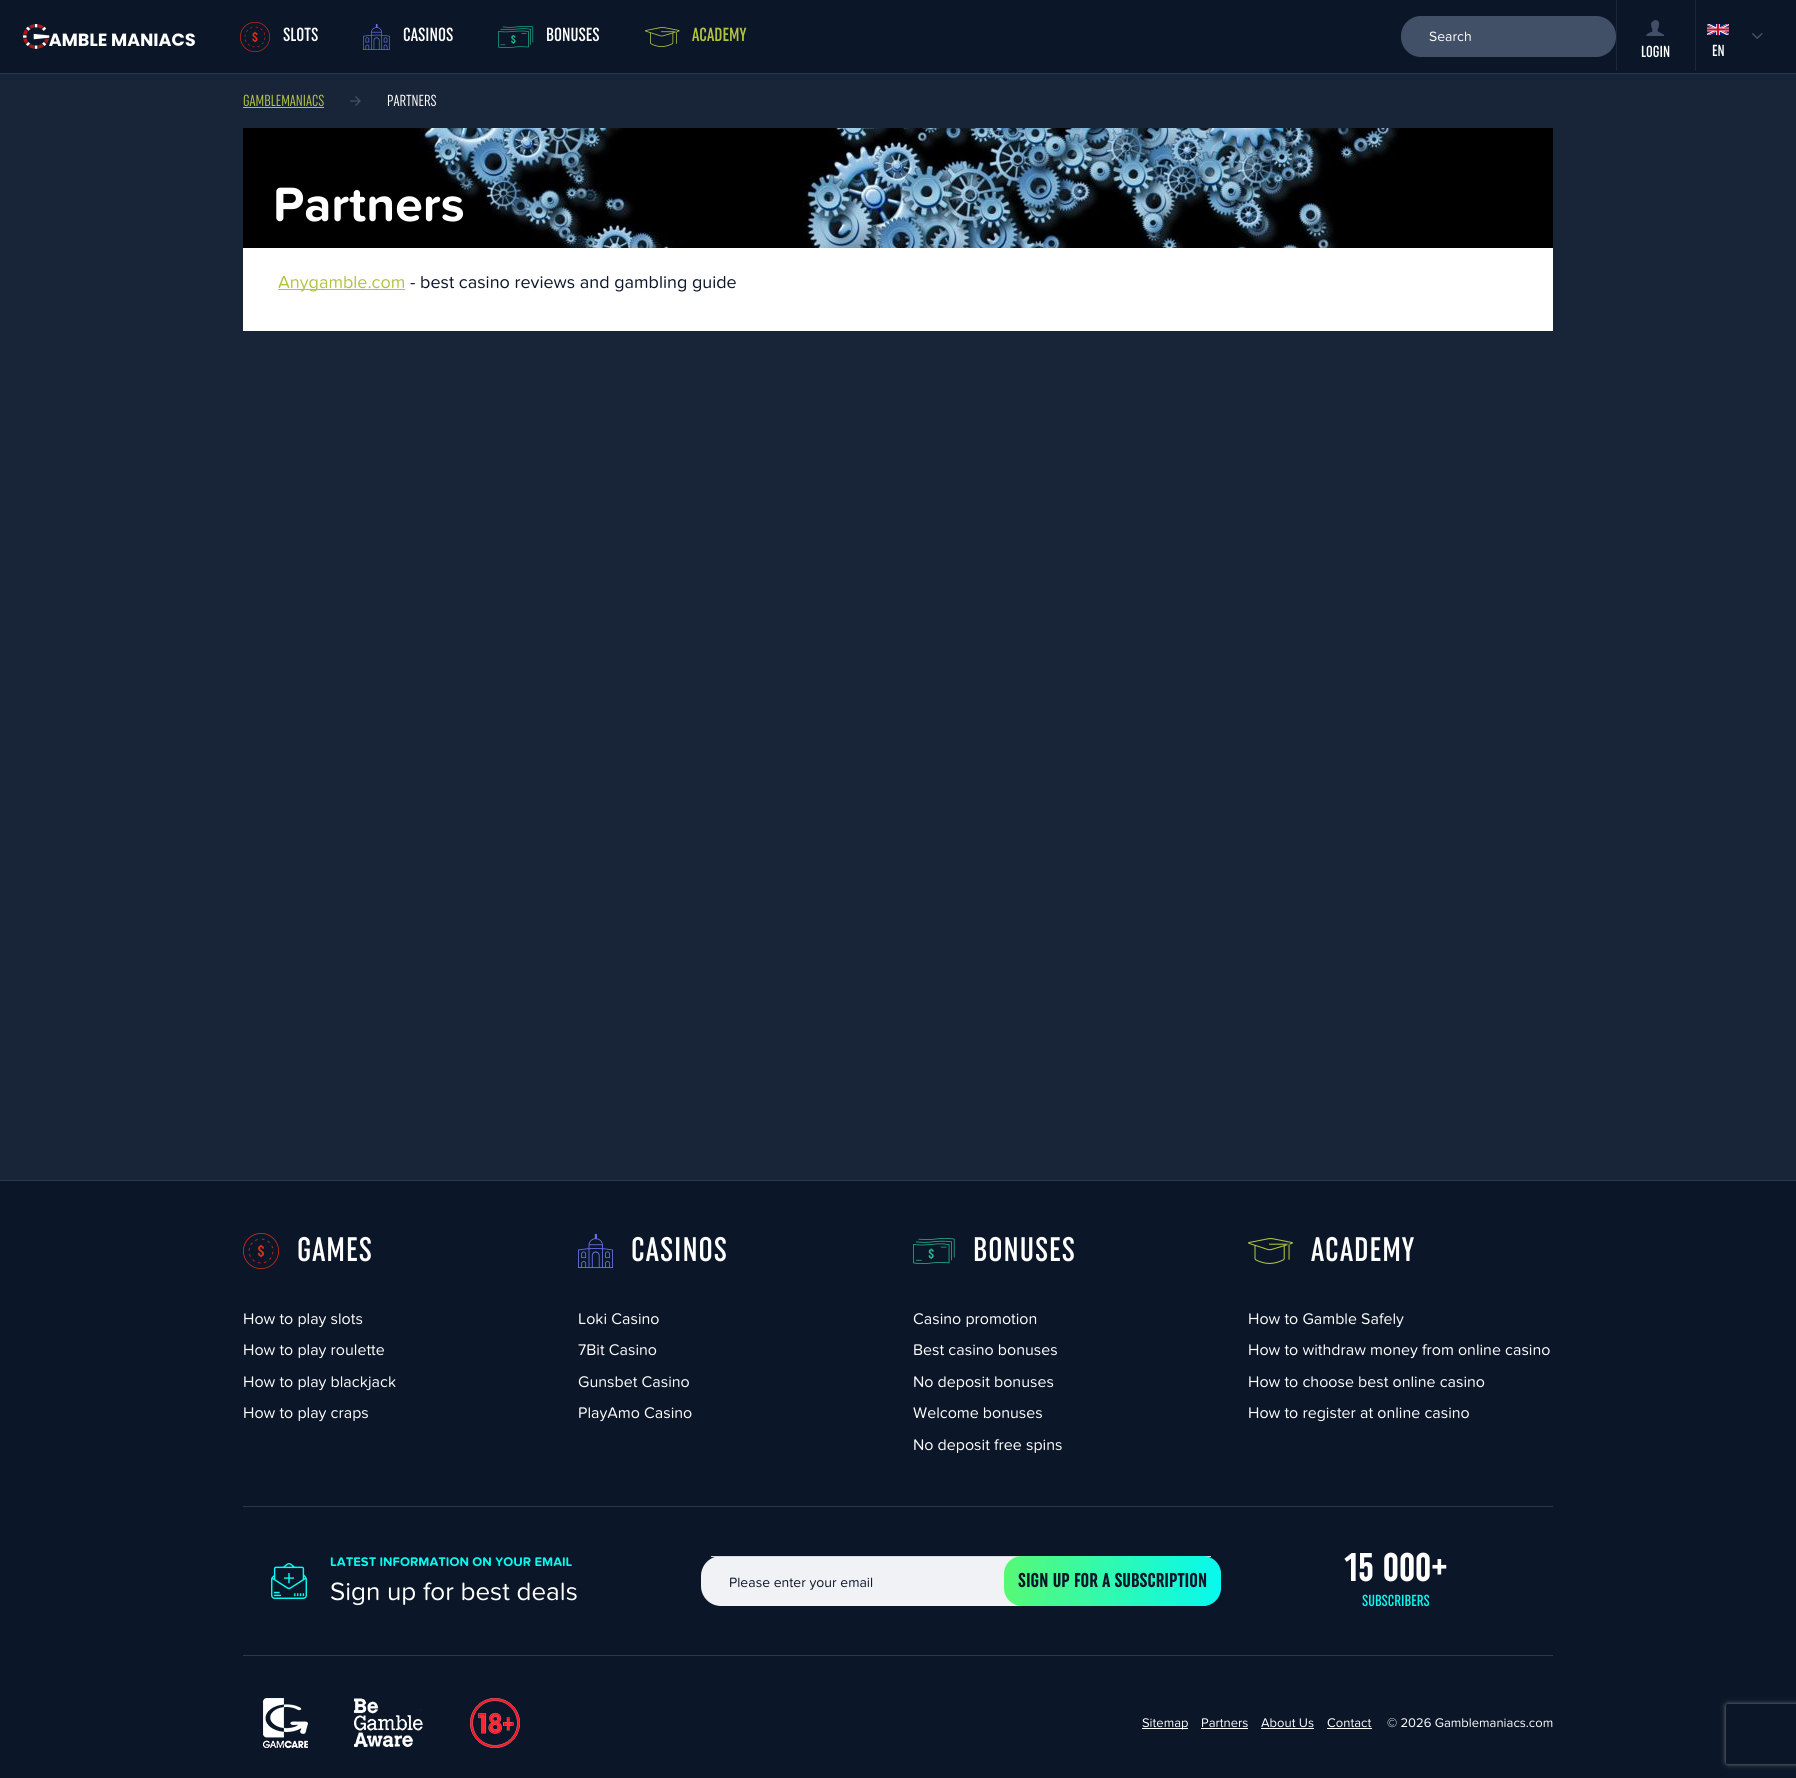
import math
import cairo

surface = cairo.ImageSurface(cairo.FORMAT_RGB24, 1796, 1778)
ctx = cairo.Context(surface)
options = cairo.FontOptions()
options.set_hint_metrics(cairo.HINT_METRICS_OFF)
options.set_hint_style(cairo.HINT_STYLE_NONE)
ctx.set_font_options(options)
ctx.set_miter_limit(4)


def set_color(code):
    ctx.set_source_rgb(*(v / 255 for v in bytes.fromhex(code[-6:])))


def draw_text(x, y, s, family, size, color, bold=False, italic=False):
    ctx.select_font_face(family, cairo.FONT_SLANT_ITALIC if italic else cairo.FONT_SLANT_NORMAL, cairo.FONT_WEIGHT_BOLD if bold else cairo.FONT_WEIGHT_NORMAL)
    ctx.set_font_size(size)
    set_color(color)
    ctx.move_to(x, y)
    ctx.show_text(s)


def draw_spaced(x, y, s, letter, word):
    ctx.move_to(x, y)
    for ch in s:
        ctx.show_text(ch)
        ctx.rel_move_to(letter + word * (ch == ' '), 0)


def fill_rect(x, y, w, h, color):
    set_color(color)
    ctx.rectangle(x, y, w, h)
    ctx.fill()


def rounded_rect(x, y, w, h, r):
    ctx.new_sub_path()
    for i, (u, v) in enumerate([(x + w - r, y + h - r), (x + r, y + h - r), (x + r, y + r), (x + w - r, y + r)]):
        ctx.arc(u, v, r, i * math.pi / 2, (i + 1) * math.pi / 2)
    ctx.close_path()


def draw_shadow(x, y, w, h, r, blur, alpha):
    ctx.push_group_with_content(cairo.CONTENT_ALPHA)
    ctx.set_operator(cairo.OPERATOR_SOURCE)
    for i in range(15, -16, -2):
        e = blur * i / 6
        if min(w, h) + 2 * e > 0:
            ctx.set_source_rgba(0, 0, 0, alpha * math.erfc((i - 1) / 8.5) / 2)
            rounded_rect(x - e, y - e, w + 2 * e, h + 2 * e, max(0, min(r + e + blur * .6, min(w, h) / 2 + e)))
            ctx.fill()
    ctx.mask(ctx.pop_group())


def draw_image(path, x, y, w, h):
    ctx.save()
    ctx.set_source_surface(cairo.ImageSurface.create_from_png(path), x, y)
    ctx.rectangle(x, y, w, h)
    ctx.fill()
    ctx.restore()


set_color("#182438")
ctx.paint()
fill_rect(0, 0, 1796, 73, "#0b1628")
fill_rect(0, 73, 1796, 1, "#283852")
draw_image("assets/img1.png", 23, 24, 172, 25)
draw_image("assets/img2.png", 240, 22, 30, 30)
draw_text(283, 41, "SLOTS", "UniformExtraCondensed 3", 19, "#ffffff")
draw_image("assets/img3.png", 363, 24, 27, 26)
draw_text(403, 41, "CASINOS", "UniformExtraCondensed 3", 19, "#ffffff")
draw_image("assets/img4.png", 498, 26, 36, 22)
draw_text(546, 41, "BONUSES", "UniformExtraCondensed 3", 19, "#ffffff")
draw_image("assets/img5.png", 645, 27, 35, 20)
draw_text(692, 41, "ACADEMY", "UniformExtraCondensed 3", 19, "#b2c340")
set_color("#415067")
rounded_rect(1401, 16, 215, 41, 20)
ctx.fill()
draw_text(1429, 41, "Search", "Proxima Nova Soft", 14, "#ffffff")
fill_rect(1616, 0, 1, 71, "#1a273d")
draw_image("assets/img6.png", 1646, 20, 19, 16)
draw_text(1641, 57, "LOGIN", "UniformExtraCondensed 3", 16, "#ffffff")
fill_rect(1695, 0, 1, 71, "#1a273d")
draw_image("assets/img7.png", 1752, 33, 11, 6)
draw_image("assets/img8.png", 1707, 24, 22, 11)
draw_text(1712, 56, "EN", "UniformExtraCondensed 3", 16, "#ffffff")
draw_text(243, 106, "GAMBLEMANIACS", "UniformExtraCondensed", 16, "#b2c340")
fill_rect(243, 107, 81, 1, "#b2c340")
draw_image("assets/img9.png", 350, 96, 11, 10)
draw_text(387, 106, "PARTNERS", "UniformExtraCondensed", 16, "#ffffff")
draw_image("assets/img10.png", 243, 128, 1310, 120)
draw_text(273, 221, "Partners", "Proxima Nova Soft", 50, "#ffffff", bold=True)
fill_rect(243, 248, 1310, 83, "#ffffff")
fill_rect(278, 289, 127, 1, "#b2c340")
draw_text(278, 288, "Anygamble.com", "Proxima Nova Soft", 18, "#b2c340")
draw_text(410, 288, "- best casino reviews and gambling guide", "Proxima Nova Soft", 18, "#0b1628")
fill_rect(0, 1181, 1796, 597, "#0b1628")
fill_rect(0, 1180, 1796, 1, "#283852")
draw_image("assets/img11.png", 243, 1233, 36, 36)
ctx.select_font_face("UniformExtraCondensed 3")
ctx.set_font_size(34)
set_color("#ffffff")
draw_spaced(297, 1261, "GAMES", 1, 0)
draw_text(243, 1324, "How to play slots", "Proxima Nova Soft", 16, "#ffffff")
draw_text(243, 1355, "How to play roulette", "Proxima Nova Soft", 16, "#ffffff")
draw_text(243, 1387, "How to play blackjack", "Proxima Nova Soft", 16, "#ffffff")
draw_text(243, 1418, "How to play craps", "Proxima Nova Soft", 16, "#ffffff")
draw_image("assets/img12.png", 578, 1234, 35, 34)
ctx.select_font_face("UniformExtraCondensed 3")
ctx.set_font_size(34)
draw_spaced(631, 1261, "CASINOS", 1, 0)
draw_text(578, 1324, "Loki Casino", "Proxima Nova Soft", 16, "#ffffff")
draw_text(578, 1355, "7Bit Casino", "Proxima Nova Soft", 16, "#ffffff")
draw_text(578, 1387, "Gunsbet Casino", "Proxima Nova Soft", 16, "#ffffff")
draw_text(578, 1418, "PlayAmo Casino", "Proxima Nova Soft", 16, "#ffffff")
draw_image("assets/img13.png", 913, 1238, 42, 26)
ctx.select_font_face("UniformExtraCondensed 3")
ctx.set_font_size(34)
draw_spaced(973, 1261, "BONUSES", 1, 0)
draw_text(913, 1324, "Casino promotion", "Proxima Nova Soft", 16, "#ffffff")
draw_text(913, 1355, "Best casino bonuses", "Proxima Nova Soft", 16, "#ffffff")
draw_text(913, 1387, "No deposit bonuses", "Proxima Nova Soft", 16, "#ffffff")
draw_text(913, 1418, "Welcome bonuses", "Proxima Nova Soft", 16, "#ffffff")
draw_text(913, 1450, "No deposit free spins", "Proxima Nova Soft", 16, "#ffffff")
draw_image("assets/img14.png", 1248, 1238, 45, 26)
ctx.select_font_face("UniformExtraCondensed 3")
ctx.set_font_size(34)
draw_spaced(1311, 1261, "ACADEMY", 1, 0)
draw_text(1248, 1324, "How to Gamble Safely", "Proxima Nova Soft", 16, "#ffffff")
draw_text(1248, 1355, "How to withdraw money from online casino", "Proxima Nova Soft", 16, "#ffffff")
draw_text(1248, 1387, "How to choose best online casino", "Proxima Nova Soft", 16, "#ffffff")
draw_text(1248, 1418, "How to register at online casino", "Proxima Nova Soft", 16, "#ffffff")
fill_rect(243, 1506, 1310, 1, "#283852")
fill_rect(243, 1655, 1310, 1, "#283852")
draw_image("assets/img15.png", 271, 1563, 36, 36)
draw_text(330, 1566, "LATEST INFORMATION ON YOUR EMAIL", "Proxima Nova Soft", 13, "#07f9ef", bold=True)
draw_text(330, 1600, "Sign up for best deals", "Proxima Nova Soft", 26, "#ffffff")
set_color("#f0f2f6")
rounded_rect(701, 1556, 520, 50, 20)
ctx.fill()
fill_rect(711, 1556, 500, 1, "#dbdada")
draw_text(729, 1587, "Please enter your email", "Proxima Nova Soft", 14, "#0b1628")
gradient = cairo.LinearGradient(1004, 1581, 1221, 1581)
gradient.add_color_stop_rgba(0, 0.341, 0.976, 0.459, 1)
gradient.add_color_stop_rgba(1, 0.027, 0.976, 0.937, 1)
ctx.set_source(gradient)
rounded_rect(1004, 1556, 217, 50, 18)
ctx.fill()
draw_text(1018, 1587, "SIGN UP FOR A SUBSCRIPTION", "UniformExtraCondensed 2", 20, "#0b1628")
draw_text(1344, 1581, "15 000+", "UniformExtraCondensed 2", 40, "#ffffff")
draw_text(1362, 1606, "SUBSCRIBERS", "UniformExtraCondensed 3", 16, "#07f9ef")
draw_image("assets/img16.png", 263, 1698, 45, 50)
draw_image("assets/img17.png", 354, 1698, 69, 49)
draw_image("assets/img18.png", 470, 1698, 50, 50)
fill_rect(1142, 1728, 46, 1, "#ffffff")
draw_text(1142, 1727, "Sitemap", "Proxima Nova Soft", 13, "#ffffff")
draw_text(1201, 1727, "Partners", "Proxima Nova Soft", 13, "#ffffff")
fill_rect(1201, 1728, 47, 1, "#ffffff")
draw_text(1261, 1727, "About Us", "Proxima Nova Soft", 13, "#ffffff")
fill_rect(1261, 1728, 53, 1, "#ffffff")
draw_text(1327, 1727, "Contact", "Proxima Nova Soft", 13, "#ffffff")
fill_rect(1327, 1728, 45, 1, "#ffffff")
draw_text(1387, 1727, "© 2026 Gamblemaniacs.com", "Proxima Nova Soft", 13, "#ffffff")
ctx.save()
ctx.set_fill_rule(cairo.FILL_RULE_EVEN_ODD)
ctx.new_path()
ctx.move_to(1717, 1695)
ctx.line_to(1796, 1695)
ctx.line_to(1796, 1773)
ctx.line_to(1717, 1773)
ctx.close_path()
ctx.move_to(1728, 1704)
ctx.line_to(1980, 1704)
ctx.curve_to(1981, 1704, 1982, 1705, 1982, 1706)
ctx.line_to(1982, 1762)
ctx.curve_to(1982, 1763, 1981, 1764, 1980, 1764)
ctx.line_to(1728, 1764)
ctx.curve_to(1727, 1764, 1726, 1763, 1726, 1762)
ctx.line_to(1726, 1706)
ctx.curve_to(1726, 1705, 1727, 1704, 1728, 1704)
ctx.close_path()
ctx.clip()
set_color("#808080")
draw_shadow(1726, 1704, 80, 60, 2, 2.5, 1)
ctx.restore()
surface.write_to_png("output.png")
